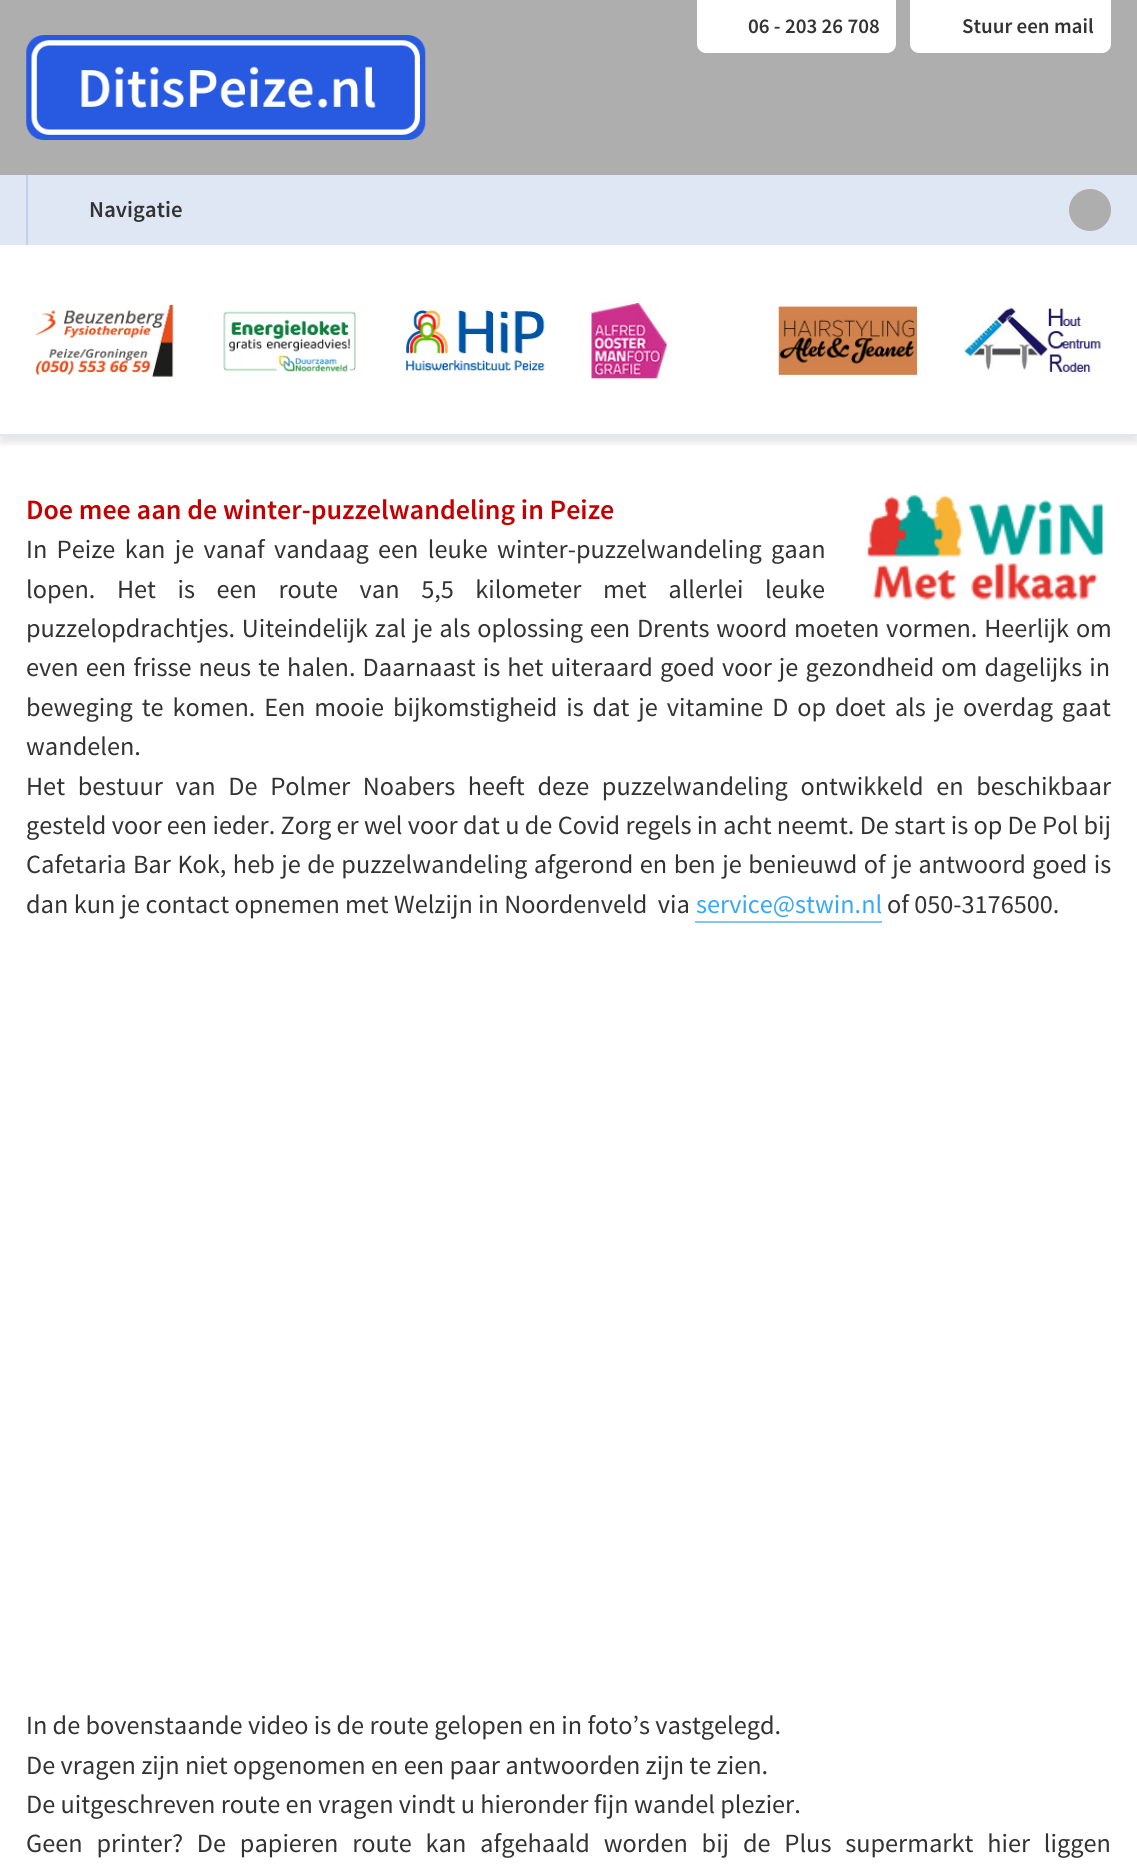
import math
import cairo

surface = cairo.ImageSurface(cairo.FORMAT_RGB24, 1137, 1865)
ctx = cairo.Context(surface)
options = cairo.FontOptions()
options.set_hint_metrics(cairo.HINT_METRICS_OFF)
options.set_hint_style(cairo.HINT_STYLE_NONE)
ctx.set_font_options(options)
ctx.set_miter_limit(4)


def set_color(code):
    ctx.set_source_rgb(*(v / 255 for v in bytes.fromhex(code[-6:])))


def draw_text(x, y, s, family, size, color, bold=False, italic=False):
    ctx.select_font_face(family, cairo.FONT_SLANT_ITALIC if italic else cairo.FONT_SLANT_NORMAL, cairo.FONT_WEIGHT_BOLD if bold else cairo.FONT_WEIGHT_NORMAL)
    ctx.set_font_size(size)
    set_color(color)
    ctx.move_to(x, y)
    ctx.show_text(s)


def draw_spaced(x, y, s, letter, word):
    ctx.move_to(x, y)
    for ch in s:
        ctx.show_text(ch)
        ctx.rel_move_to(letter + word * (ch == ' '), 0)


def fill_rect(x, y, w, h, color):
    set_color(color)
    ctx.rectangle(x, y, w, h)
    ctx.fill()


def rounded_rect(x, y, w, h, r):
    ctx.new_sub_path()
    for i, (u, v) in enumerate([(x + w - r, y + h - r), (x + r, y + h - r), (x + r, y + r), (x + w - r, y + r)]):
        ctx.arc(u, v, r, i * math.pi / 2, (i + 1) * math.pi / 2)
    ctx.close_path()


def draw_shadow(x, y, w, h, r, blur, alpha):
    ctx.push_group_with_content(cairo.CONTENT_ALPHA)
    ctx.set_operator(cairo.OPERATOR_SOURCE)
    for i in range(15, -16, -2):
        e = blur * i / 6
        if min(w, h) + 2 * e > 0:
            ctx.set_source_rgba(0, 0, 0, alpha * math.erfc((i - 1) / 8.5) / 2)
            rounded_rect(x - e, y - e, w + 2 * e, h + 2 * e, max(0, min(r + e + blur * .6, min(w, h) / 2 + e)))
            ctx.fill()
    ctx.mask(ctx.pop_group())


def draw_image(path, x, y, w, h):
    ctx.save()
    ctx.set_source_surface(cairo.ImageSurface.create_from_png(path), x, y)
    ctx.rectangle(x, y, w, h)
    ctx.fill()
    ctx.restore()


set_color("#ffffff")
ctx.paint()
fill_rect(0, 0, 1137, 175, "#aeaeae")
set_color("#ffffff")
ctx.new_path()
ctx.move_to(697, 0)
ctx.line_to(896, 0)
ctx.line_to(896, 44)
ctx.curve_to(896, 49, 892, 53, 887, 53)
ctx.line_to(706, 53)
ctx.curve_to(701, 53, 697, 49, 697, 44)
ctx.close_path()
ctx.fill()
draw_text(748, 33, "06 - 203 26 708", "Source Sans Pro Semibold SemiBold", 21, "#333333")
set_color("#ffffff")
ctx.new_path()
ctx.move_to(910, 0)
ctx.line_to(1111, 0)
ctx.line_to(1111, 44)
ctx.curve_to(1111, 49, 1107, 53, 1102, 53)
ctx.line_to(919, 53)
ctx.curve_to(914, 53, 910, 49, 910, 44)
ctx.close_path()
ctx.fill()
draw_text(962, 33, "Stuur een mail", "Source Sans Pro Semibold SemiBold", 21, "#333333")
draw_image("assets/img1.png", 26, 35, 400, 105)
ctx.save()
ctx.rectangle(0, 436, 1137, 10)
ctx.clip()
set_color("#000000")
draw_shadow(0, 252, 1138, 191, 0, 3.5, 0.1)
ctx.restore()
fill_rect(0, 175, 1137, 70, "#e0e7f4")
fill_rect(26, 175, 2, 70, "#c2d0e9")
draw_text(89, 217, "Navigatie", "Source Sans Pro Semibold SemiBold", 22.75, "#333333")
set_color("#aeaeae")
ctx.new_path()
ctx.arc(1090, 210, 21, 0, 2 * math.pi)
ctx.fill()
fill_rect(0, 434, 1137, 2, "#e0e7f4")
draw_image("assets/img2.png", 35, 304, 139, 73)
draw_image("assets/img3.png", 223, 311, 133, 61)
draw_image("assets/img4.png", 406, 310, 139, 61)
draw_image("assets/img5.png", 591, 303, 80, 76)
draw_image("assets/img6.png", 778, 306, 139, 69)
draw_image("assets/img7.png", 964, 307, 137, 65)
draw_text(26, 519, "Doe mee aan de winter-puzzelwandeling in Peize", "Source Sans Pro Semibold SemiBold", 28, "#c40000")
draw_image("assets/img8.png", 867, 494, 236, 107)
ctx.select_font_face("Source Sans Pro")
ctx.set_font_size(26.25)
set_color("#333333")
draw_spaced(26, 558, "In Peize kan je vanaf vandaag een leuke winter-puzzelwandeling gaan", 0, 4)
draw_spaced(26, 598, "lopen. Het is een route van 5,5 kilometer met allerlei leuke", 0, 16.25)
draw_spaced(26, 637, "puzzelopdrachtjes. Uiteindelijk zal je als oplossing een Drents woord moeten vormen. Heerlijk om", 0, 1.5)
draw_spaced(26, 676, "even een frisse neus te halen. Daarnaast is het uiteraard goed voor je gezondheid om dagelijks in", 0, 1.75)
draw_spaced(26, 716, "beweging te komen. Een mooie bijkomstigheid is dat je vitamine D op doet als je overdag gaat", 0, 3.6)
draw_text(26, 755, "wandelen.", "Source Sans Pro", 26.25, "#333333")
draw_spaced(26, 795, "Het bestuur van De Polmer Noabers heeft deze puzzelwandeling ontwikkeld en beschikbaar", 0, 7.4)
draw_text(26, 834, "gesteld voor een ieder. Zorg er wel voor dat u de Covid regels in acht neemt. De start is op De Pol bij", "Source Sans Pro", 26.25, "#333333")
draw_spaced(26, 873, "Cafetaria Bar Kok, heb je de puzzelwandeling afgerond en ben je benieuwd of je antwoord goed is", 0, 1.2)
draw_text(26, 913, "dan kun je contact opnemen met Welzijn in Noordenveld  via", "Source Sans Pro", 26.25, "#333333")
draw_text(696, 913, "service@stwin.nl", "Source Sans Pro", 26.25, "#37a8f7")
fill_rect(695, 921, 187, 2, "#81c8fa")
draw_text(887, 913, "of 050-3176500.", "Source Sans Pro", 26.25, "#333333")
draw_text(26, 1734, "In de bovenstaande video is de route gelopen en in foto’s vastgelegd.", "Source Sans Pro", 26.25, "#333333")
draw_text(26, 1774, "De vragen zijn niet opgenomen en een paar antwoorden zijn te zien.", "Source Sans Pro", 26.25, "#333333")
draw_text(26, 1813, "De uitgeschreven route en vragen vindt u hieronder fijn wandel plezier.", "Source Sans Pro", 26.25, "#333333")
draw_spaced(26, 1852, "Geen printer? De papieren route kan afgehaald worden bij de Plus supermarkt hier liggen", 0, 8.5)
surface.write_to_png("output.png")
